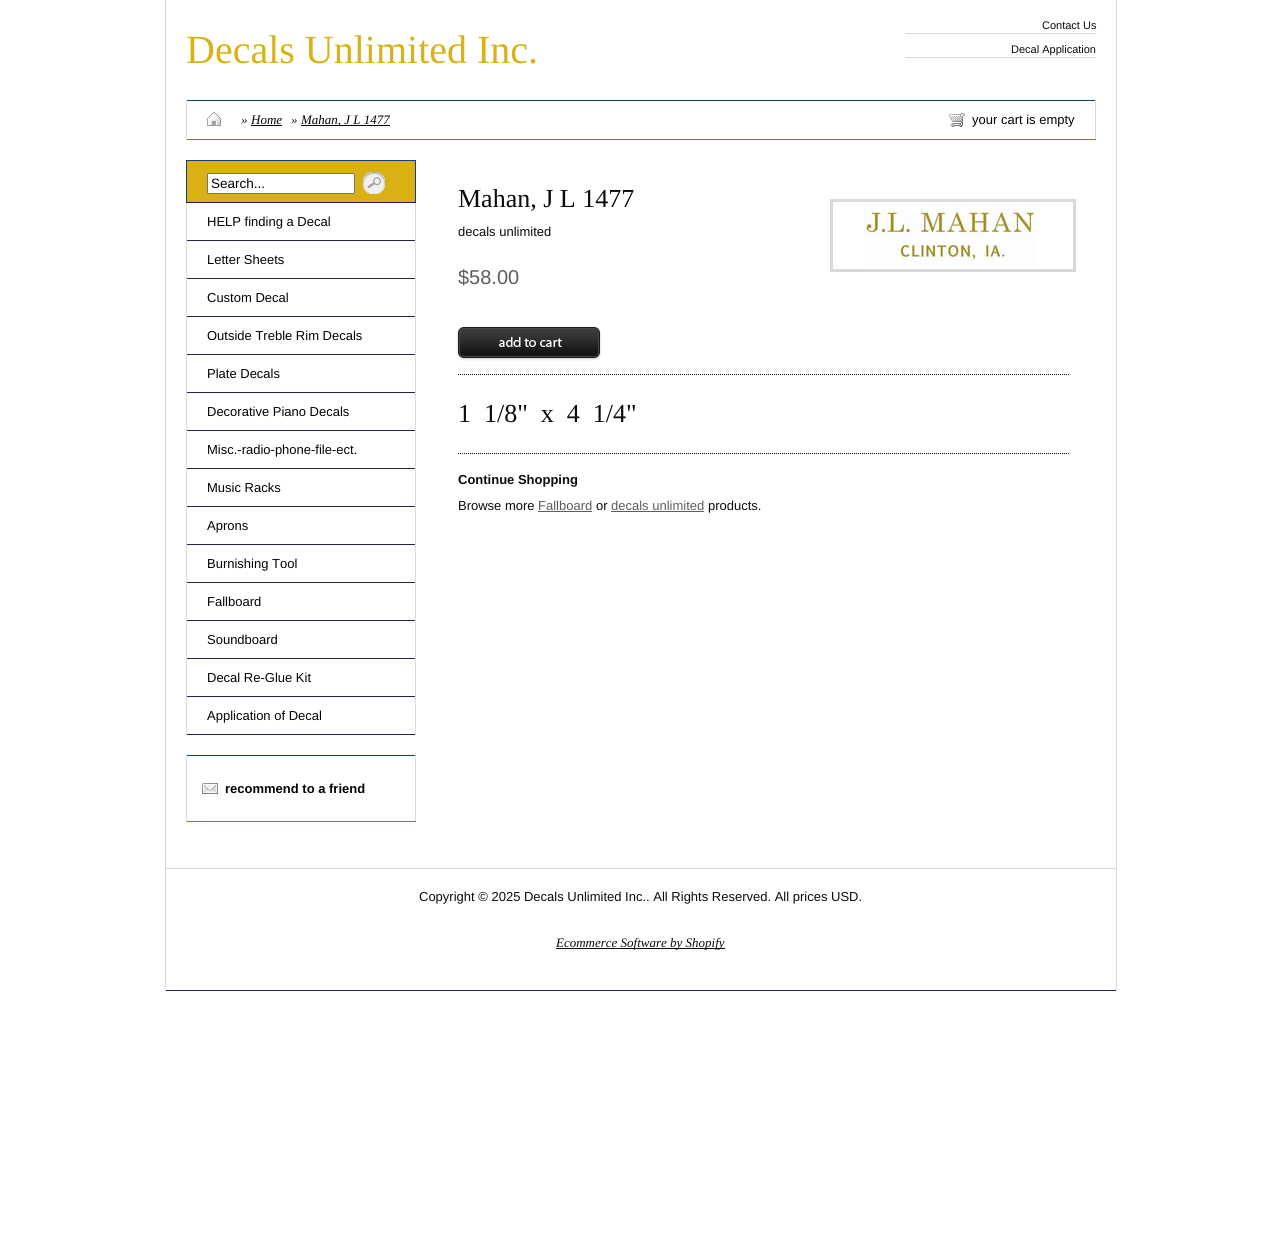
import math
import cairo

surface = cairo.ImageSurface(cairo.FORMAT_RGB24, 1281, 1259)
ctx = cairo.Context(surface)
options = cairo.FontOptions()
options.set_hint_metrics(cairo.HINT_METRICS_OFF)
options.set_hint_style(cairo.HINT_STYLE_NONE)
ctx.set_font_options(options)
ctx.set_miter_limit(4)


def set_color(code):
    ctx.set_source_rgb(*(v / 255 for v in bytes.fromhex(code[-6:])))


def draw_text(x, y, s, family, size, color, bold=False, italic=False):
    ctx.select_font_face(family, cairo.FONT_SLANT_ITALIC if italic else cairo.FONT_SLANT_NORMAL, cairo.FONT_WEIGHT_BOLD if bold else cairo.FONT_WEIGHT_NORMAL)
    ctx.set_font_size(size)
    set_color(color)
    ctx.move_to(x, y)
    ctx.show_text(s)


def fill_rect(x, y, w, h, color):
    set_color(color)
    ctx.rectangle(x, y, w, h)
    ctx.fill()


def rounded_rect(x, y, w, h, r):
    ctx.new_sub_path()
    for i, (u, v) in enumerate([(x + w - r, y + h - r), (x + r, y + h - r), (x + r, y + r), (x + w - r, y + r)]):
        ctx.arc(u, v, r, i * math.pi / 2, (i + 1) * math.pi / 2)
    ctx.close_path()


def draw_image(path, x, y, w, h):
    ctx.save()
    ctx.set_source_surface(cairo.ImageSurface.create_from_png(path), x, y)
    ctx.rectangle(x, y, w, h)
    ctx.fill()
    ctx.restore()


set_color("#ffffff")
ctx.paint()
fill_rect(1116, 0, 1, 991, "#dad9d5")
fill_rect(165, 0, 1, 991, "#dad9d5")
draw_text(186, 63, "Decals Unlimited Inc.", "Liberation Serif", 40, "#d9b218")
fill_rect(905, 33, 191, 1, "#dad9d5")
draw_text(1042, 29, "Contact Us", "Liberation Sans", 11, "#0b0b0b")
fill_rect(905, 57, 191, 1, "#dad9d5")
draw_text(1011, 53, "Decal Application", "Liberation Sans", 11, "#0b0b0b")
fill_rect(186, 100, 910, 1, "#104173")
fill_rect(1095, 100, 1, 40, "#dad9d5")
fill_rect(186, 139, 910, 1, "#947b16")
fill_rect(186, 100, 1, 40, "#dad9d5")
draw_image("assets/img1.png", 207, 112, 14, 14)
draw_text(241, 124, "»", "Liberation Serif", 13, "#050007", italic=True)
draw_text(251, 124, "Home", "Liberation Serif", 13, "#050007", italic=True)
fill_rect(251, 125, 31, 1, "#050007")
draw_text(291, 124, "»", "Liberation Serif", 13, "#050007", italic=True)
fill_rect(301, 125, 89, 1, "#050007")
draw_text(301, 124, "Mahan, J L 1477", "Liberation Serif", 13, "#050007", italic=True)
draw_image("assets/img2.png", 949, 113, 16, 14)
draw_text(972, 124, "your cart is empty", "Liberation Sans", 13, "#050007")
fill_rect(187, 161, 228, 41, "#d9b114")
fill_rect(186, 160, 230, 1, "#104173")
fill_rect(415, 160, 1, 43, "#104173")
fill_rect(186, 202, 230, 1, "#242452")
fill_rect(186, 160, 1, 43, "#104173")
set_color("#ffffff")
rounded_rect(207.5, 173.5, 147, 20, 1.5)
ctx.fill_preserve()
set_color("#767676")
ctx.set_line_width(1)
ctx.stroke()
draw_text(211, 188, "Search...", "Liberation Sans", 13.5, "#050007")
draw_image("assets/img3.png", 363, 172, 22, 22)
fill_rect(415, 203, 1, 532, "#dad9d5")
fill_rect(186, 203, 1, 532, "#dad9d5")
fill_rect(187, 240, 228, 1, "#242452")
draw_text(207, 226, "HELP finding a Decal", "Liberation Sans", 13, "#050007")
fill_rect(187, 278, 228, 1, "#242452")
draw_text(207, 264, "Letter Sheets", "Liberation Sans", 13, "#050007")
fill_rect(187, 316, 228, 1, "#242452")
draw_text(207, 302, "Custom Decal", "Liberation Sans", 13, "#050007")
fill_rect(187, 354, 228, 1, "#242452")
draw_text(207, 340, "Outside Treble Rim Decals", "Liberation Sans", 13, "#050007")
fill_rect(187, 392, 228, 1, "#242452")
draw_text(207, 378, "Plate Decals", "Liberation Sans", 13, "#050007")
fill_rect(187, 430, 228, 1, "#242452")
draw_text(207, 416, "Decorative Piano Decals", "Liberation Sans", 13, "#050007")
fill_rect(187, 468, 228, 1, "#242452")
draw_text(207, 454, "Misc.-radio-phone-file-ect.", "Liberation Sans", 13, "#050007")
fill_rect(187, 506, 228, 1, "#242452")
draw_text(207, 492, "Music Racks", "Liberation Sans", 13, "#050007")
fill_rect(187, 544, 228, 1, "#242452")
draw_text(207, 530, "Aprons", "Liberation Sans", 13, "#050007")
fill_rect(187, 582, 228, 1, "#242452")
draw_text(207, 568, "Burnishing Tool", "Liberation Sans", 13, "#050007")
fill_rect(187, 620, 228, 1, "#242452")
draw_text(207, 606, "Fallboard", "Liberation Sans", 13, "#050007")
fill_rect(187, 658, 228, 1, "#242452")
draw_text(207, 644, "Soundboard", "Liberation Sans", 13, "#050007")
fill_rect(187, 696, 228, 1, "#242452")
draw_text(207, 682, "Decal Re-Glue Kit", "Liberation Sans", 13, "#050007")
fill_rect(187, 734, 228, 1, "#242452")
draw_text(207, 720, "Application of Decal", "Liberation Sans", 13, "#050007")
fill_rect(186, 755, 230, 1, "#104173")
fill_rect(415, 755, 1, 67, "#dad9d5")
fill_rect(186, 821, 230, 1, "#947b16")
fill_rect(186, 755, 1, 67, "#dad9d5")
draw_image("assets/img4.png", 202, 783, 16, 11)
draw_text(225, 793, "recommend to a friend", "Liberation Sans", 13, "#050007", bold=True)
draw_text(458, 207, "Mahan, J L 1477", "Liberation Serif", 26, "#0b0b0b")
ctx.rectangle(831.5, 200.5, 243, 70)
set_color("#dad9d5")
ctx.set_line_width(3)
ctx.stroke()
draw_image("assets/img5.png", 864, 209, 173, 56)
draw_text(458, 236, "decals unlimited", "Liberation Sans", 13, "#0b0b0b")
draw_text(458, 284, "$58.00", "Liberation Sans", 20, "#5c5d5e")
draw_image("assets/img6.png", 456, 326, 146, 35)
ctx.new_path()
ctx.move_to(458, 374.5)
ctx.line_to(1070, 374.5)
set_color("#0b0b0b")
ctx.set_line_width(1)
ctx.set_dash([1, 1])
ctx.stroke()
draw_text(458, 422, "1  1/8\"  x  4  1/4\"", "Liberation Serif", 26, "#0b0b0b")
ctx.new_path()
ctx.move_to(458, 453.5)
ctx.line_to(1070, 453.5)
ctx.stroke()
draw_text(458, 484, "Continue Shopping", "Liberation Sans", 13, "#0b0b0b", bold=True)
draw_text(458, 510, "Browse more", "Liberation Sans", 13, "#0b0b0b")
draw_text(538, 510, "Fallboard", "Liberation Sans", 13, "#5c5d5e")
fill_rect(538, 511, 54, 1, "#5c5d5e")
draw_text(596, 510, "or", "Liberation Sans", 13, "#0b0b0b")
draw_text(611, 510, "decals unlimited", "Liberation Sans", 13, "#5c5d5e")
fill_rect(611, 511, 93, 1, "#5c5d5e")
draw_text(708, 510, "products.", "Liberation Sans", 13, "#0b0b0b")
fill_rect(166, 868, 950, 1, "#dad9d5")
fill_rect(166, 990, 950, 1, "#242452")
draw_text(419, 901, "Copyright © 2025 Decals Unlimited Inc.. All Rights Reserved. All prices USD.", "Liberation Sans", 13, "#0b0b0b")
fill_rect(556, 948, 169, 1, "#0b0b0b")
draw_text(556, 947, "Ecommerce Software by Shopify", "Liberation Serif", 13, "#0b0b0b", italic=True)
surface.write_to_png("output.png")
